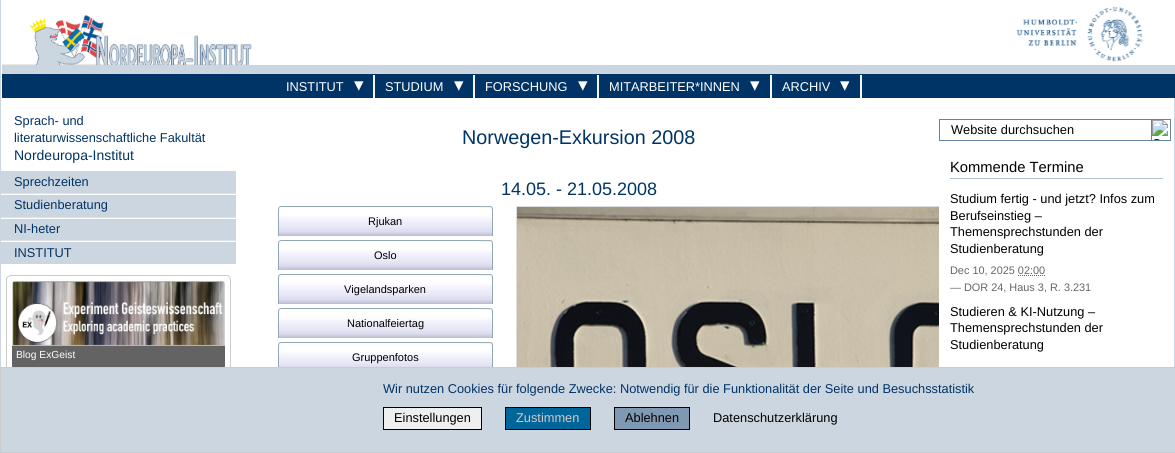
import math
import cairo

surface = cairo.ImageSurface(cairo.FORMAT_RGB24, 1175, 453)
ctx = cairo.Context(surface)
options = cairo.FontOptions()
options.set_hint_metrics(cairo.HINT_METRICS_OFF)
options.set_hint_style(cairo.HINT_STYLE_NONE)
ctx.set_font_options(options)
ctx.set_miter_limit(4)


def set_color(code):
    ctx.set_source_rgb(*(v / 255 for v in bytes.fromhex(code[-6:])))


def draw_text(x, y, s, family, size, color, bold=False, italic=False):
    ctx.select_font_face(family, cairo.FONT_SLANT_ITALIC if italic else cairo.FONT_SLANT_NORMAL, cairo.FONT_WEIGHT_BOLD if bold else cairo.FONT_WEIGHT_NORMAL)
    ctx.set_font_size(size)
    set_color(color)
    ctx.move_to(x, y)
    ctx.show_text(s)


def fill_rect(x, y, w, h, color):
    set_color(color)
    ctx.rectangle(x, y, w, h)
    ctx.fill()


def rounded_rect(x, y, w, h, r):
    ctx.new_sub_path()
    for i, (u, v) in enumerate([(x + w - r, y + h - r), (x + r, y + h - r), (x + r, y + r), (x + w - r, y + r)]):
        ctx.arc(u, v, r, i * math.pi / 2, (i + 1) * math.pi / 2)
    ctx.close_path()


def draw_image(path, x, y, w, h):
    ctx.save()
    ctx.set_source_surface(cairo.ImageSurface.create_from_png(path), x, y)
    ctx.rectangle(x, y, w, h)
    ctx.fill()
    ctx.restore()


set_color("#ffffff")
ctx.paint()
fill_rect(0, 0, 1, 367, "#ccd6e0")
fill_rect(1174, 98, 1, 269, "#ccd6e0")
draw_text(14, 125, "Sprach- und", "Liberation Sans", 12.8, "#003366")
draw_text(14, 142, "literaturwissenschaftliche Fakultät", "Liberation Sans", 12.8, "#003366")
draw_text(14, 160, "Nordeuropa-Institut", "Liberation Sans", 14, "#003366")
fill_rect(1, 171, 235, 22, "#ccd6e0")
draw_text(14, 186, "Sprechzeiten", "Liberation Sans", 12.8, "#003366")
fill_rect(1, 195, 235, 22, "#ccd6e0")
fill_rect(1, 193, 235, 1, "#dee2e6")
draw_text(14, 209, "Studienberatung", "Liberation Sans", 12.8, "#003366")
fill_rect(1, 219, 235, 21, "#ccd6e0")
fill_rect(1, 217, 235, 1, "#dee2e6")
draw_text(14, 233, "NI-heter", "Liberation Sans", 12.8, "#003366")
fill_rect(1, 242, 235, 22, "#ccd6e0")
fill_rect(1, 240, 235, 1, "#dee2e6")
draw_text(14, 257, "INSTITUT", "Liberation Sans", 12.8, "#003366")
rounded_rect(6.5, 275.5, 224, 99, 4.5)
set_color("#cccccc")
ctx.set_line_width(1)
ctx.stroke()
draw_image("assets/img1.png", 12, 281, 213, 65)
set_color("#636363")
ctx.new_path()
ctx.move_to(12, 346)
ctx.line_to(225, 346)
ctx.line_to(225, 366)
ctx.curve_to(225, 367.5, 223.5, 369, 222, 369)
ctx.line_to(15, 369)
ctx.curve_to(13.5, 369, 12, 367.5, 12, 366)
ctx.close_path()
ctx.fill()
draw_text(16, 358, "Blog ExGeist", "Liberation Sans", 10.25, "#ffffff")
draw_image("assets/img2.png", 2, 15, 250, 50)
draw_image("assets/img3.png", 1016, 6, 127, 56)
fill_rect(2, 65, 1173, 9, "#ccd6e0")
fill_rect(2, 74, 1173, 24, "#003366")
fill_rect(373, 75, 2, 24, "#f5f5f5")
draw_text(286, 91, "INSTITUT", "Liberation Sans", 12.8, "#ffffff")
draw_text(354, 91, "▾", "DejaVu Sans", 19, "#ffffff")
fill_rect(473, 75, 2, 24, "#f5f5f5")
draw_text(385, 91, "STUDIUM", "Liberation Sans", 12.8, "#ffffff")
draw_text(454, 91, "▾", "DejaVu Sans", 19, "#ffffff")
fill_rect(597, 75, 2, 24, "#f5f5f5")
draw_text(485, 91, "FORSCHUNG", "Liberation Sans", 12.8, "#ffffff")
draw_text(578, 91, "▾", "DejaVu Sans", 19, "#ffffff")
fill_rect(770, 75, 2, 24, "#f5f5f5")
draw_text(609, 91, "MITARBEITER*INNEN", "Liberation Sans", 12.8, "#ffffff")
draw_text(750, 91, "▾", "DejaVu Sans", 19, "#ffffff")
fill_rect(860, 75, 2, 24, "#f5f5f5")
draw_text(782, 91, "ARCHIV", "Liberation Sans", 12.8, "#ffffff")
draw_text(840, 91, "▾", "DejaVu Sans", 19, "#ffffff")
draw_text(462, 144, "Norwegen-Exkursion 2008", "Liberation Sans", 19.8, "#003366")
draw_text(501, 195, "14.05. - 21.05.2008", "Liberation Sans", 18, "#003366")
draw_image("assets/img4.png", 278, 206, 215, 30)
draw_text(368, 225, "Rjukan", "Liberation Sans", 11, "#000000")
draw_image("assets/img4.png", 278, 240, 215, 30)
draw_text(374, 259, "Oslo", "Liberation Sans", 11, "#000000")
draw_image("assets/img4.png", 278, 274, 215, 30)
draw_text(344, 293, "Vigelandsparken", "Liberation Sans", 11, "#000000")
draw_image("assets/img4.png", 278, 308, 215, 30)
draw_text(347, 327, "Nationalfeiertag", "Liberation Sans", 11, "#000000")
draw_image("assets/img5.png", 278, 342, 215, 25)
draw_text(352, 361, "Gruppenfotos", "Liberation Sans", 11, "#000000")
ctx.rectangle(516.5, 206.5, 479, 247)
set_color("#dddddd")
ctx.stroke()
draw_image("assets/img6.png", 517, 207, 422, 160)
ctx.rectangle(939.5, 119.5, 231, 21)
set_color("#6685a3")
ctx.stroke()
draw_text(951, 134, "Website durchsuchen", "Liberation Sans", 12.8, "#000000")
ctx.rectangle(1151.5, 119.5, 19, 21)
set_color("#6685a3")
ctx.stroke()
draw_image("assets/img7.png", 1152, 120, 16, 20)
fill_rect(939, 206, 57, 161, "#ffffff")
fill_rect(950, 178, 213, 1, "#b2c1d1")
draw_text(950, 172, "Kommende Termine", "Liberation Sans", 14.75, "#000000")
draw_text(950, 203, "Studium fertig - und jetzt? Infos zum", "Liberation Sans", 12.8, "#000000")
draw_text(950, 220, "Berufseinstieg –", "Liberation Sans", 12.8, "#000000")
draw_text(950, 236, "Themensprechstunden der", "Liberation Sans", 12.8, "#000000")
draw_text(950, 253, "Studienberatung", "Liberation Sans", 12.8, "#000000")
draw_text(950, 274, "Dec 10, 2025 02:00", "Liberation Sans", 10.9, "#666666")
ctx.new_path()
ctx.move_to(1018, 275.5)
ctx.line_to(1045.5, 275.5)
ctx.set_dash([1, 1])
ctx.stroke()
draw_text(950, 291, "— DOR 24, Haus 3, R. 3.231", "Liberation Sans", 10.9, "#666666")
draw_text(950, 316, "Studieren & KI-Nutzung –", "Liberation Sans", 12.8, "#000000")
draw_text(950, 332, "Themensprechstunden der", "Liberation Sans", 12.8, "#000000")
draw_text(950, 349, "Studienberatung", "Liberation Sans", 12.8, "#000000")
set_color("#ccd6e0")
ctx.rectangle(0.5, 367.5, 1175, 85)
ctx.fill_preserve()
set_color("#cccccc")
ctx.set_dash([])
ctx.stroke()
draw_text(383, 393, "Wir nutzen Cookies für folgende Zwecke: Notwendig für die Funktionalität der Seite und Besuchsstatistik", "Liberation Sans", 12.8, "#003366")
set_color("#efefef")
ctx.rectangle(383.5, 407.5, 98, 22)
ctx.fill_preserve()
set_color("#000000")
ctx.stroke()
draw_text(394, 422, "Einstellungen", "Liberation Sans", 12.8, "#000000")
set_color("#006699")
ctx.rectangle(505.5, 407.5, 85, 22)
ctx.fill_preserve()
set_color("#000000")
ctx.stroke()
draw_text(516, 422, "Zustimmen", "Liberation Sans", 12.8, "#d5c7c7")
set_color("#8099b2")
ctx.rectangle(614.5, 407.5, 75, 22)
ctx.fill_preserve()
set_color("#000000")
ctx.stroke()
draw_text(625, 422, "Ablehnen", "Liberation Sans", 12.8, "#000000")
draw_text(713, 422, "Datenschutzerklärung", "Liberation Sans", 12.8, "#000000")
surface.write_to_png("output.png")
